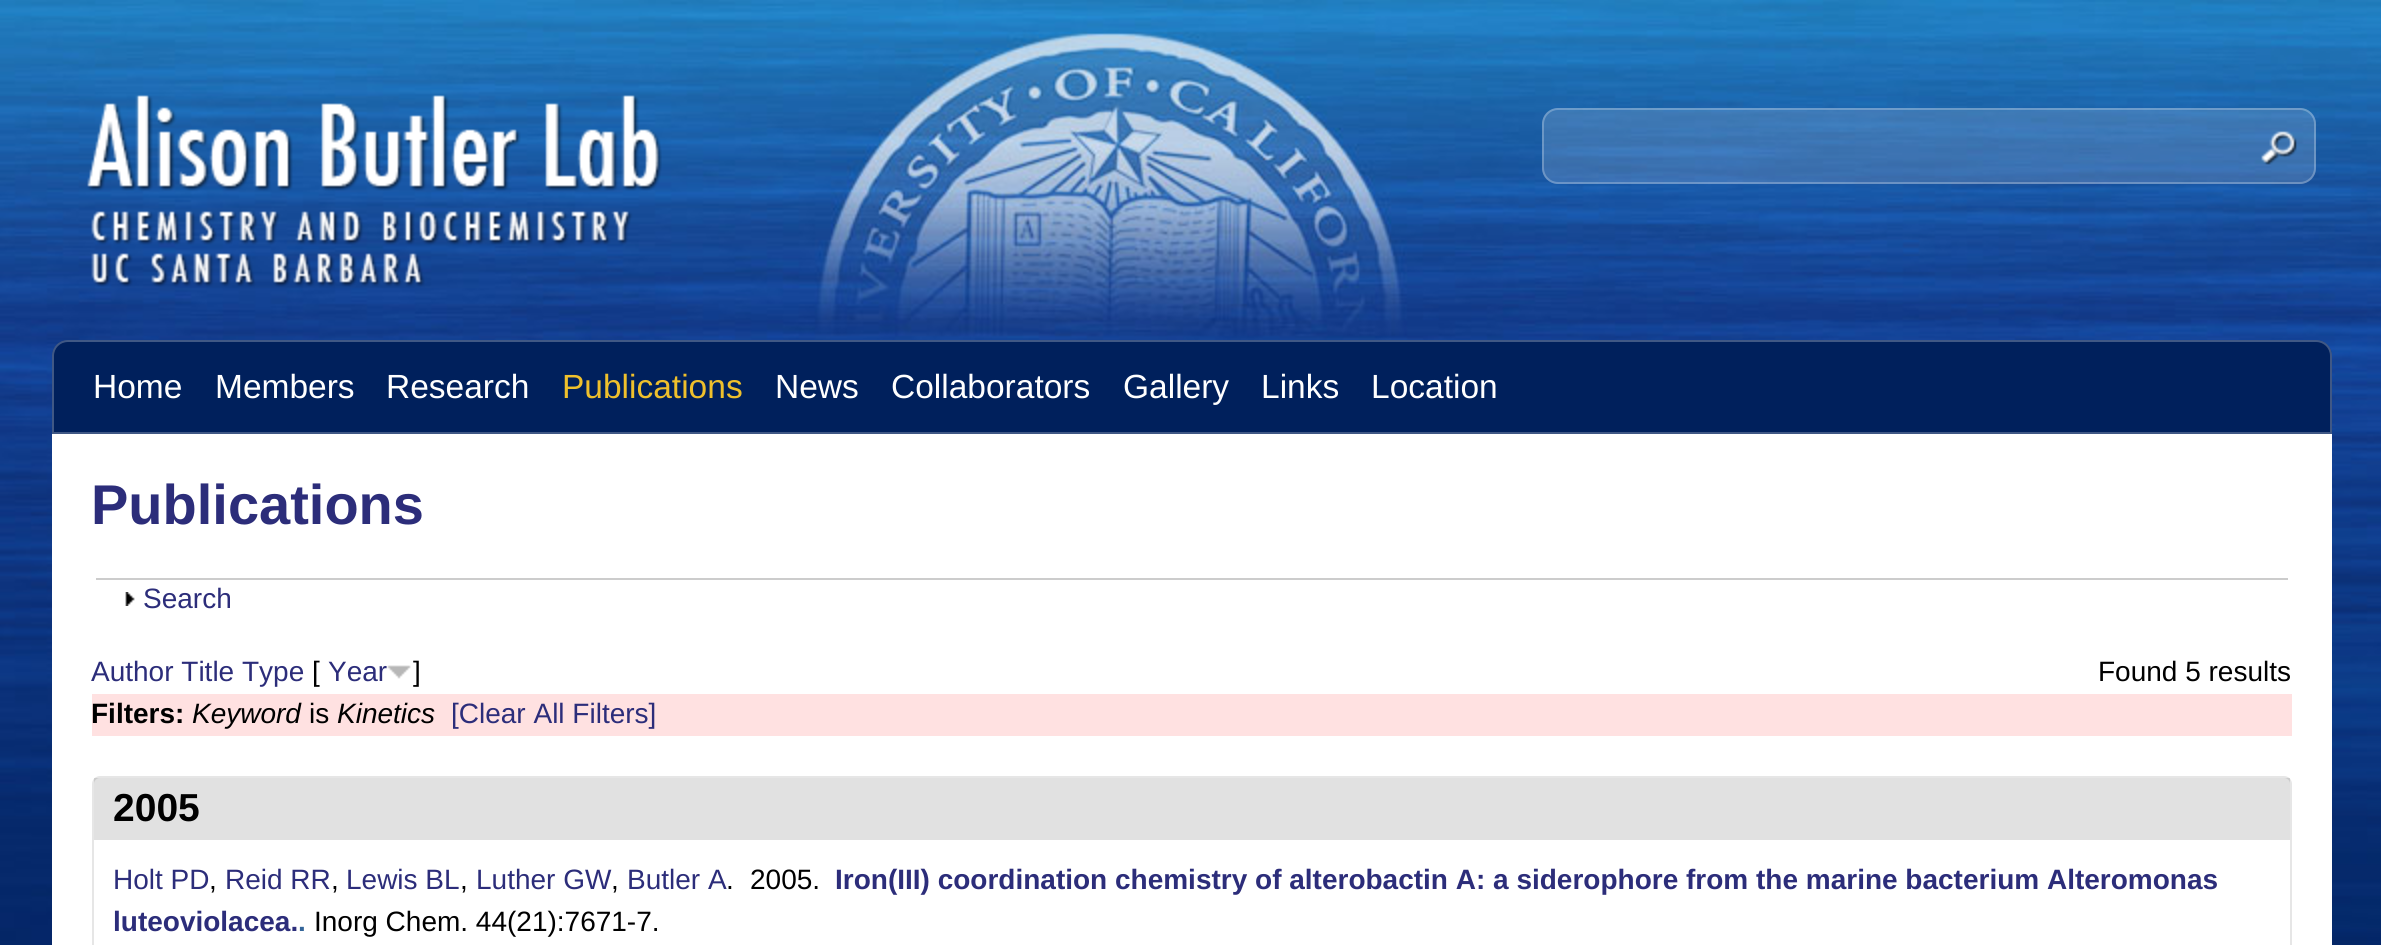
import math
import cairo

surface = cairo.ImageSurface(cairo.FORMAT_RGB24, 2381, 945)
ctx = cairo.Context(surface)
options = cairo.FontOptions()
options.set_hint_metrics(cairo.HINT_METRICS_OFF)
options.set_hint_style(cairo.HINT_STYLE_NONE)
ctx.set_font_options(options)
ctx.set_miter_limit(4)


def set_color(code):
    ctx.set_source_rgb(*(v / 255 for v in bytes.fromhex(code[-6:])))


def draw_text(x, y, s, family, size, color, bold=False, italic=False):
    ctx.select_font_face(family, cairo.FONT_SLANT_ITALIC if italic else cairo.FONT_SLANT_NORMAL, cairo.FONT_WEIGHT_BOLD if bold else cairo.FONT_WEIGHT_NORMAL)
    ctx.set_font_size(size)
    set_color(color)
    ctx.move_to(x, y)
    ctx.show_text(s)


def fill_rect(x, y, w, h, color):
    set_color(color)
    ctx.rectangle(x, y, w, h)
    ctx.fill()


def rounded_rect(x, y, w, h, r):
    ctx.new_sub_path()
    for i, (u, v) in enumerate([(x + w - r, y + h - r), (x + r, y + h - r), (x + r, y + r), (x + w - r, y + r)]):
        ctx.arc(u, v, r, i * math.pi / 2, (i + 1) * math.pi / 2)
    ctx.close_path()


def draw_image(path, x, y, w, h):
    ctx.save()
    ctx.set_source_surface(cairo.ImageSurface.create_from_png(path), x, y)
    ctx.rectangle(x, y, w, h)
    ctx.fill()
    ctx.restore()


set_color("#ffffff")
ctx.paint()
draw_image("assets/img1.png", 0, 0, 2381, 945)
draw_image("assets/img2.png", 87, 95, 575, 192)
ctx.set_source_rgba(1, 1, 1, 0.15)
rounded_rect(1542, 108, 774, 76, 16)
ctx.fill()
draw_image("assets/img3.png", 2261, 131, 36, 34)
rounded_rect(1543, 109, 772, 74, 15)
ctx.set_source_rgba(1, 1, 1, 0.25)
ctx.stroke()
set_color("#00205c")
ctx.new_path()
ctx.move_to(68, 340)
ctx.line_to(2316, 340)
ctx.curve_to(2325, 340, 2332, 347, 2332, 356)
ctx.line_to(2332, 434)
ctx.line_to(52, 434)
ctx.line_to(52, 356)
ctx.curve_to(52, 347, 59, 340, 68, 340)
ctx.close_path()
ctx.fill()
ctx.new_path()
ctx.move_to(68, 341)
ctx.line_to(2316, 341)
ctx.curve_to(2324.5, 341, 2331, 347.5, 2331, 356)
ctx.line_to(2331, 433)
ctx.line_to(53, 433)
ctx.line_to(53, 356)
ctx.curve_to(53, 347.5, 59.5, 341, 68, 341)
ctx.close_path()
ctx.set_source_rgba(1, 1, 1, 0.25)
ctx.stroke()
draw_text(93, 398, "Home", "Liberation Sans", 33.5, "#ffffff")
draw_text(215, 398, "Members", "Liberation Sans", 33.5, "#ffffff")
draw_text(386, 398, "Research", "Liberation Sans", 33.5, "#ffffff")
draw_text(562, 398, "Publications", "Liberation Sans", 33.5, "#efc02c")
draw_text(775, 398, "News", "Liberation Sans", 33.5, "#ffffff")
draw_text(891, 398, "Collaborators", "Liberation Sans", 33.5, "#ffffff")
draw_text(1123, 398, "Gallery", "Liberation Sans", 33.5, "#ffffff")
draw_text(1261, 398, "Links", "Liberation Sans", 33.5, "#ffffff")
draw_text(1371, 398, "Location", "Liberation Sans", 33.5, "#ffffff")
fill_rect(52, 434, 2280, 511, "#ffffff")
draw_text(91, 524, "Publications", "Liberation Sans", 56, "#2c2d7a", bold=True)
fill_rect(96, 578, 2192, 2, "#cccccc")
draw_image("assets/img4.png", 125, 592, 10, 14)
draw_text(143, 608, "Search", "Liberation Sans", 28, "#2c2d7a")
draw_text(91, 681, "Author Title Type", "Liberation Sans", 28, "#2c2d7a")
draw_text(312, 681, "[", "Liberation Sans", 28, "#000000")
draw_text(328, 681, "Year", "Liberation Sans", 28, "#2c2d7a")
draw_image("assets/img5.png", 387, 665, 24, 14)
draw_text(413, 681, "]", "Liberation Sans", 28, "#000000")
draw_text(2098, 681, "Found 5 results", "Liberation Sans", 28, "#000000")
fill_rect(92, 694, 2200, 42, "#ffe1e1")
draw_text(91, 723, "Filters:", "Liberation Sans", 28, "#000000", bold=True)
draw_text(192, 723, "Keyword", "Liberation Sans", 28, "#000000", italic=True)
draw_text(309, 723, "is", "Liberation Sans", 28, "#000000")
draw_text(337, 723, "Kinetics", "Liberation Sans", 28, "#000000", italic=True)
draw_text(451, 723, "[Clear All Filters]", "Liberation Sans", 28, "#2c2d7a")
rounded_rect(93, 777, 2198, 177, 7)
set_color("#e6e6e6")
ctx.stroke()
ctx.set_source_rgba(0, 0, 0, 0.12)
ctx.rectangle(94, 778, 2196, 62)
ctx.fill()
draw_text(113, 821, "2005", "Liberation Sans", 39, "#000000", bold=True)
draw_text(113, 889, "Holt PD", "Liberation Sans", 28, "#2c2d7a")
draw_text(209, 889, ",", "Liberation Sans", 28, "#000000")
draw_text(225, 889, "Reid RR", "Liberation Sans", 28, "#2c2d7a")
draw_text(331, 889, ",", "Liberation Sans", 28, "#000000")
draw_text(346, 889, "Lewis BL", "Liberation Sans", 28, "#2c2d7a")
draw_text(460, 889, ",", "Liberation Sans", 28, "#000000")
draw_text(476, 889, "Luther GW", "Liberation Sans", 28, "#2c2d7a")
draw_text(611, 889, ",", "Liberation Sans", 28, "#000000")
draw_text(627, 889, "Butler A", "Liberation Sans", 28, "#2c2d7a")
draw_text(726, 889, ".", "Liberation Sans", 28, "#000000")
draw_text(750, 889, "2005.", "Liberation Sans", 28, "#000000")
draw_text(835, 889, "Iron(III) coordination chemistry of alterobactin A: a siderophore from the marine bacterium Alteromonas", "Liberation Sans", 28, "#2c2d7a", bold=True)
draw_text(113, 931, "luteoviolacea.", "Liberation Sans", 28, "#2c2d7a", bold=True)
draw_text(298, 931, ".", "Liberation Sans", 28, "#336599", bold=True)
draw_text(314, 931, "Inorg Chem. 44(21):7671-7.", "Liberation Sans", 28, "#000000")
surface.write_to_png("output.png")
